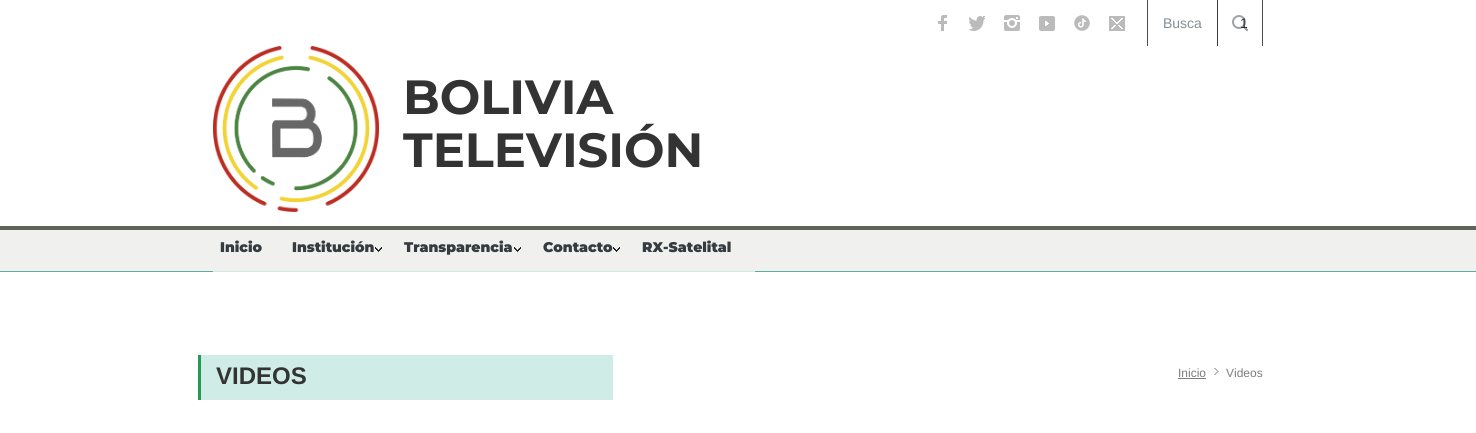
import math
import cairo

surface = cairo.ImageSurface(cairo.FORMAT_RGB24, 1476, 433)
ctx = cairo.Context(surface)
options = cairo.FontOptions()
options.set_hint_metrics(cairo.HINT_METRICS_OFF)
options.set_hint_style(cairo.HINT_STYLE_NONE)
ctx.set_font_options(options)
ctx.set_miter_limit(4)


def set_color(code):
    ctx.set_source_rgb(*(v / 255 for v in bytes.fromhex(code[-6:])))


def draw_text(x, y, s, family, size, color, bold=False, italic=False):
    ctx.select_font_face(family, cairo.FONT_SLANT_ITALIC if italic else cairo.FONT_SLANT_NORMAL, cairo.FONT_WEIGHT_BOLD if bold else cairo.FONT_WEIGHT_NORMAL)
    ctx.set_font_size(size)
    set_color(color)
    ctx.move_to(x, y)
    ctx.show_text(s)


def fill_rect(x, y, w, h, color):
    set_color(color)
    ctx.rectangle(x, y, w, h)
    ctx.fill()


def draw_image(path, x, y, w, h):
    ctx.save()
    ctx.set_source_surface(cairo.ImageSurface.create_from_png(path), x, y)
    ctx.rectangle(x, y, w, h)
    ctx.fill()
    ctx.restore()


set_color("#ffffff")
ctx.paint()
draw_image("assets/img1.png", 938, 15, 9, 16)
draw_image("assets/img2.png", 969, 16, 16, 15)
draw_image("assets/img3.png", 1004, 15, 16, 16)
draw_image("assets/img4.png", 1039, 16, 16, 15)
draw_image("assets/img5.png", 1074, 15, 16, 16)
draw_image("assets/img6.png", 1109, 16, 16, 15)
fill_rect(1262, 0, 1, 46, "#464d53")
fill_rect(1147, 0, 1, 46, "#464d53")
fill_rect(1217, 0, 1, 46, "#363b40")
draw_text(1163, 28, "Busca", "Liberation Sans", 14, "#858d94")
draw_image("assets/img7.png", 1232, 15, 16, 16)
draw_text(1240, 28, "1", "Liberation Sans", 14, "#333333")
draw_image("assets/img8.png", 213, 46, 166, 166)
draw_text(403, 114, "BOLIVIA", "Montserrat", 48, "#333333", bold=True)
draw_text(403, 167, "TELEVISIÓN", "Montserrat", 48, "#333333", bold=True)
fill_rect(0, 226, 1476, 4, "#5c6359")
fill_rect(0, 230, 1476, 41, "#f0f1ee")
fill_rect(0, 271, 1476, 1, "#5eac9d")
fill_rect(213, 271, 542, 1, "#d0ece7")
draw_text(220, 252, "Inicio", "Montserrat Black", 14, "#363b40")
draw_image("assets/img9.png", 375, 247, 7, 5)
draw_text(292, 252, "Institución", "Montserrat Black", 14, "#363b40")
draw_image("assets/img9.png", 514, 247, 7, 5)
draw_text(404, 252, "Transparencia", "Montserrat Black", 14, "#363b40")
draw_image("assets/img9.png", 613, 247, 7, 5)
draw_text(543, 252, "Contacto", "Montserrat Black", 14, "#363b40")
draw_text(642, 252, "RX-Satelital", "Montserrat Black", 14, "#363b40")
fill_rect(201, 355, 412, 45, "#d0ece7")
fill_rect(198, 355, 3, 45, "#229954")
draw_text(216, 384, "VIDEOS", "Liberation Sans", 24, "#333333", bold=True)
draw_text(1178, 377, "Inicio", "Liberation Sans", 12, "#7c7c7c")
fill_rect(1178, 378, 28, 1, "#7c7c7c")
draw_image("assets/img10.png", 1214, 368, 5, 7)
draw_text(1226, 377, "Videos", "Liberation Sans", 12, "#7c7c7c")
surface.write_to_png("output.png")
